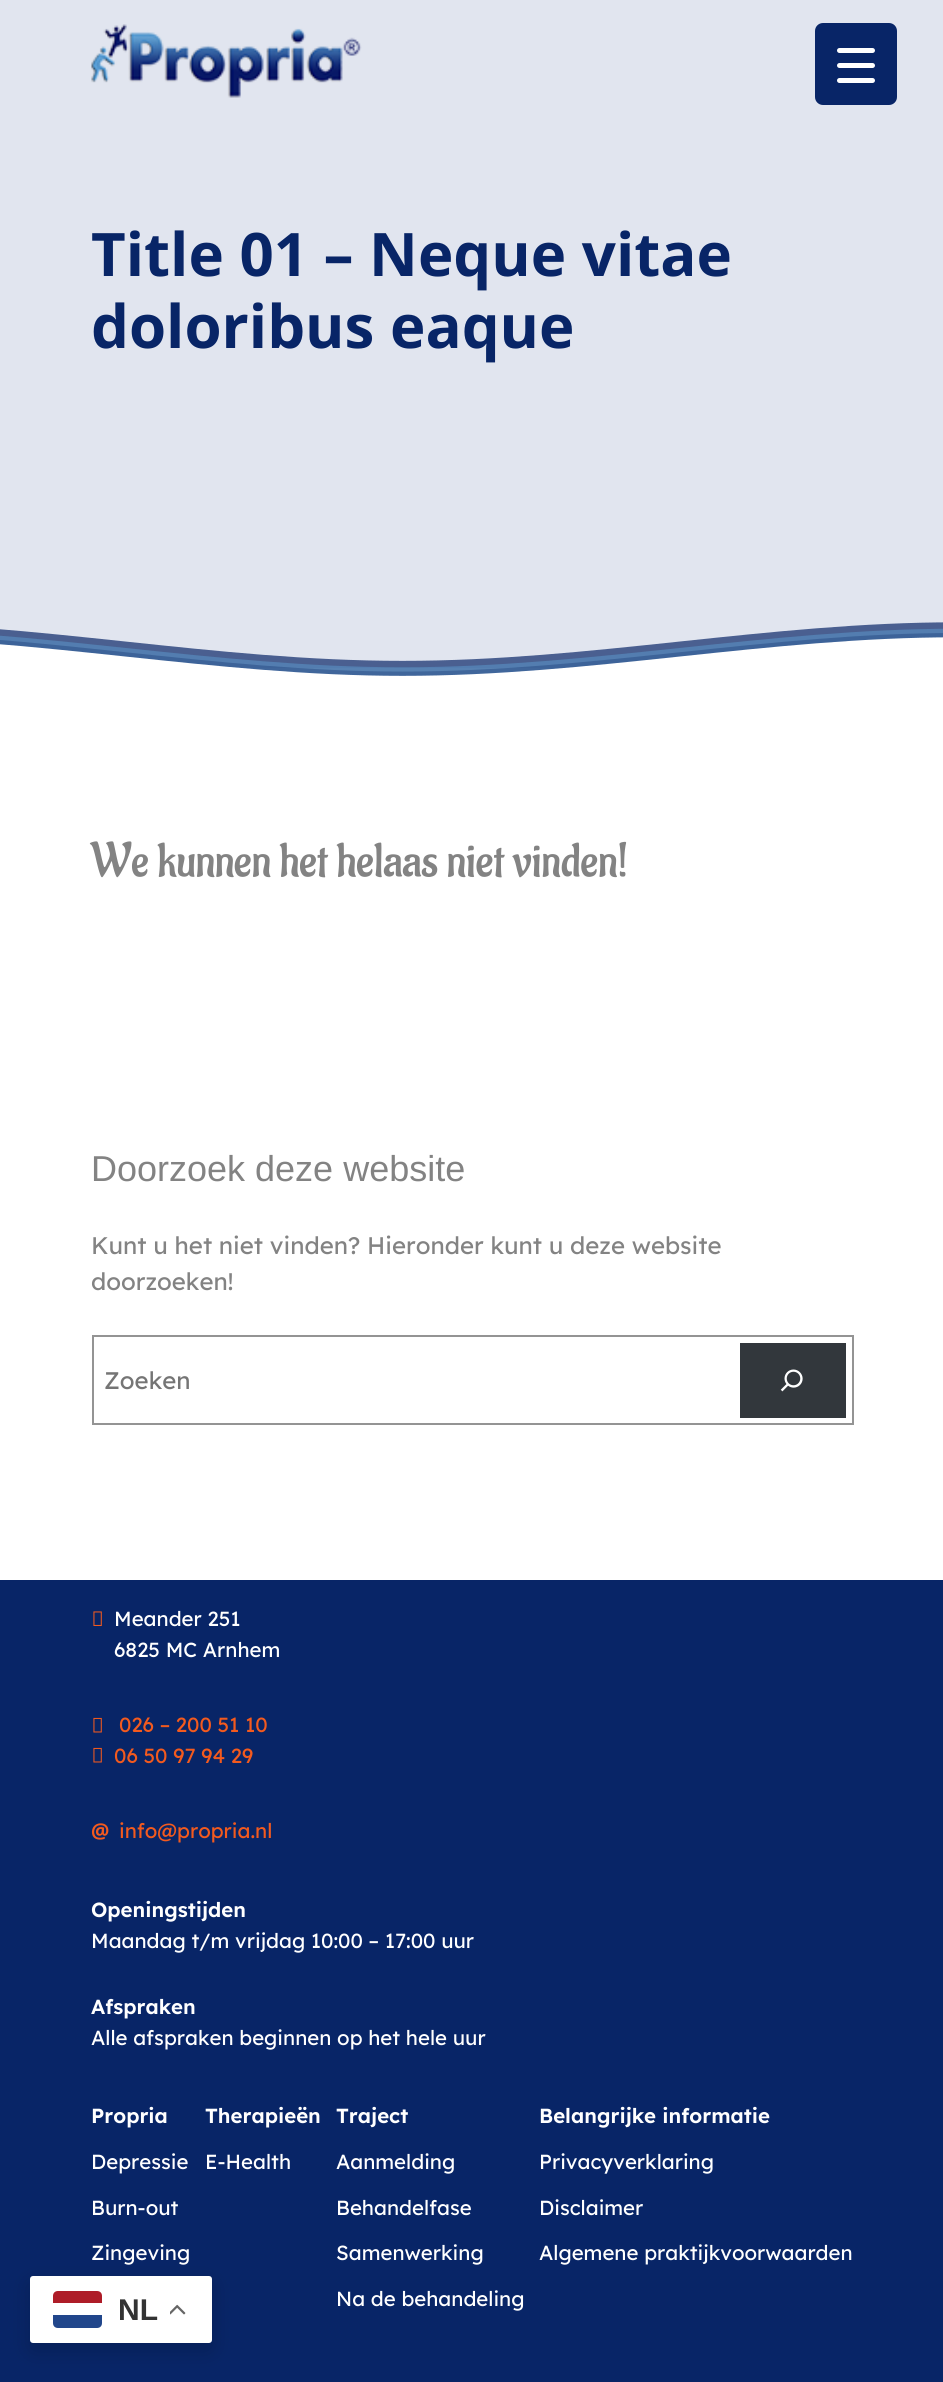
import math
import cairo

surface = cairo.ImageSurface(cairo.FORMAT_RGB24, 943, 2382)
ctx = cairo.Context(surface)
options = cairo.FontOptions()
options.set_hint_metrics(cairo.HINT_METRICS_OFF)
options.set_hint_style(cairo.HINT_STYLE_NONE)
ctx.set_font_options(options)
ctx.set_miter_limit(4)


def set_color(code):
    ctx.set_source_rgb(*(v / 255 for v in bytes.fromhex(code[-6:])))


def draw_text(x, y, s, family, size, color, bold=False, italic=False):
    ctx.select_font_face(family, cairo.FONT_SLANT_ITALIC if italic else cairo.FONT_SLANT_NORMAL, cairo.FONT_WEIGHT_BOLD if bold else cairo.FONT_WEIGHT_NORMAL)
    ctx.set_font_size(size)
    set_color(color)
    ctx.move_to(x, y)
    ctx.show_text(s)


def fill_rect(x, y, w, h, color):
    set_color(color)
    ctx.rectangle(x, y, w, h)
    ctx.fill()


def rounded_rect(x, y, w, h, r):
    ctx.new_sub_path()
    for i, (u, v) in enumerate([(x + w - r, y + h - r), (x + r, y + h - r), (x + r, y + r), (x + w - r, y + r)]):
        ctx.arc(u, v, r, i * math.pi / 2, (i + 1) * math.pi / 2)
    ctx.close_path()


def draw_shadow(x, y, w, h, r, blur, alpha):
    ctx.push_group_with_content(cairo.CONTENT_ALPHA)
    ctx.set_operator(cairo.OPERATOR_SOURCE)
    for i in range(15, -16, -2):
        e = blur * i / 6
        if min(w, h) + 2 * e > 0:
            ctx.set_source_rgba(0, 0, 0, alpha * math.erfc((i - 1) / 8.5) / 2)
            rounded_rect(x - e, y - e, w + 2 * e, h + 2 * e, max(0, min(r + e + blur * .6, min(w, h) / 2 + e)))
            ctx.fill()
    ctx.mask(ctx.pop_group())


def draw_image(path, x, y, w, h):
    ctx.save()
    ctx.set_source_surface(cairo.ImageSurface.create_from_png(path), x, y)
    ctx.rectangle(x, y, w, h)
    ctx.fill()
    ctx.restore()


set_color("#ffffff")
ctx.paint()
fill_rect(0, 0, 943, 668, "#e1e5ef")
set_color("#082567")
rounded_rect(815, 23, 82, 82, 8)
ctx.fill()
set_color("#ffffff")
rounded_rect(837, 63, 38, 5, 2.5)
ctx.fill()
rounded_rect(837, 48, 38, 5, 2.5)
ctx.fill()
rounded_rect(837, 78, 38, 5, 2.5)
ctx.fill()
draw_image("assets/img1.png", 91, 24, 271, 74)
draw_image("assets/img2.png", 0, 622, 943, 54)
draw_text(91, 276, "Title 01 – Neque vitae", "Open Sans", 60, "#082567", bold=True)
draw_text(91, 348, "doloribus eaque", "Open Sans", 60, "#082567", bold=True)
draw_text(91, 876, "We kunnen het helaas niet vinden!", "Aladin", 48, "#838383")
draw_text(91, 1181, "Doorzoek deze website", "Liberation Sans", 36, "#838383")
draw_text(91, 1254, "Kunt u het niet vinden? Hieronder kunt u deze website", "Lexend", 24, "#838383")
draw_text(91, 1290, "doorzoeken!", "Lexend", 24, "#838383")
ctx.rectangle(93, 1336, 760, 88)
set_color("#949494")
ctx.stroke()
draw_text(104, 1389, "Zoeken", "Lexend", 24, "#757575")
fill_rect(740, 1343, 106, 75, "#32373c")
draw_image("assets/img3.png", 780, 1369, 23, 23)
fill_rect(0, 1580, 943, 802, "#082567")
draw_image("assets/img4.png", 93, 1611, 9, 15)
draw_text(114, 1626, "Meander 251", "Lexend", 20.4, "#ffffff")
draw_text(114, 1657, "6825 MC Arnhem", "Lexend", 20.4, "#ffffff")
draw_image("assets/img5.png", 93, 1717, 9, 16)
draw_text(119, 1732, "026 – 200 51 10", "Lexend", 20.4, "#f35a1e")
draw_image("assets/img5.png", 93, 1747, 9, 16)
draw_text(114, 1763, "06 50 97 94 29", "Lexend", 20.4, "#f35a1e")
draw_text(91, 1838, "@", "Noto Sans", 20.4, "#f35a1e", bold=True)
draw_text(119, 1838, "info@propria.nl", "Lexend", 20.4, "#f35a1e")
draw_text(91, 1917, "Openingstijden", "Lexend SemiBold", 20.4, "#ffffff")
draw_text(91, 1948, "Maandag t/m vrijdag 10:00 – 17:00 uur", "Lexend", 20.4, "#ffffff")
draw_text(91, 2014, "Afspraken", "Lexend SemiBold", 20.4, "#ffffff")
draw_text(91, 2045, "Alle afspraken beginnen op het hele uur", "Lexend", 20.4, "#ffffff")
draw_text(91, 2123, "Propria", "Lexend SemiBold", 20.4, "#ffffff")
draw_text(91, 2169, "Depressie", "Lexend", 20.4, "#ffffff")
draw_text(91, 2215, "Burn-out", "Lexend", 20.4, "#ffffff")
draw_text(91, 2260, "Zingeving", "Lexend", 20.4, "#ffffff")
draw_text(205, 2123, "Therapieën", "Lexend SemiBold", 20.4, "#ffffff")
draw_text(205, 2169, "E-Health", "Lexend", 20.4, "#ffffff")
draw_text(336, 2123, "Traject", "Lexend SemiBold", 20.4, "#ffffff")
draw_text(336, 2169, "Aanmelding", "Lexend", 20.4, "#ffffff")
draw_text(336, 2215, "Behandelfase", "Lexend", 20.4, "#ffffff")
draw_text(336, 2260, "Samenwerking", "Lexend", 20.4, "#ffffff")
draw_text(336, 2306, "Na de behandeling", "Lexend", 20.4, "#ffffff")
draw_text(539, 2123, "Belangrijke informatie", "Lexend SemiBold", 20.4, "#ffffff")
draw_text(539, 2169, "Privacyverklaring", "Lexend", 20.4, "#ffffff")
draw_text(539, 2215, "Disclaimer", "Lexend", 20.4, "#ffffff")
draw_text(539, 2260, "Algemene praktijkvoorwaarden", "Lexend", 20.4, "#ffffff")
set_color("#000000")
draw_shadow(30, 2283, 182, 68, 3, 11, 0.15)
set_color("#ffffff")
rounded_rect(30, 2276, 182, 67, 3)
ctx.fill()
set_color("#21468b")
ctx.new_path()
ctx.move_to(53, 2315)
ctx.line_to(102, 2315)
ctx.line_to(102, 2323)
ctx.curve_to(102, 2326, 100, 2328, 97, 2328)
ctx.line_to(58, 2328)
ctx.curve_to(55, 2328, 53, 2326, 53, 2323)
ctx.close_path()
ctx.fill()
set_color("#ae1c28")
ctx.new_path()
ctx.move_to(58, 2291)
ctx.line_to(97, 2291)
ctx.curve_to(100, 2291, 102, 2293, 102, 2296)
ctx.line_to(102, 2303)
ctx.line_to(53, 2303)
ctx.line_to(53, 2296)
ctx.curve_to(53, 2293, 55, 2291, 58, 2291)
ctx.close_path()
ctx.fill()
draw_text(118, 2320, "NL", "Liberation Sans", 30, "#333333", bold=True)
draw_image("assets/img6.png", 170, 2304, 16, 11)
surface.write_to_png("output.png")
